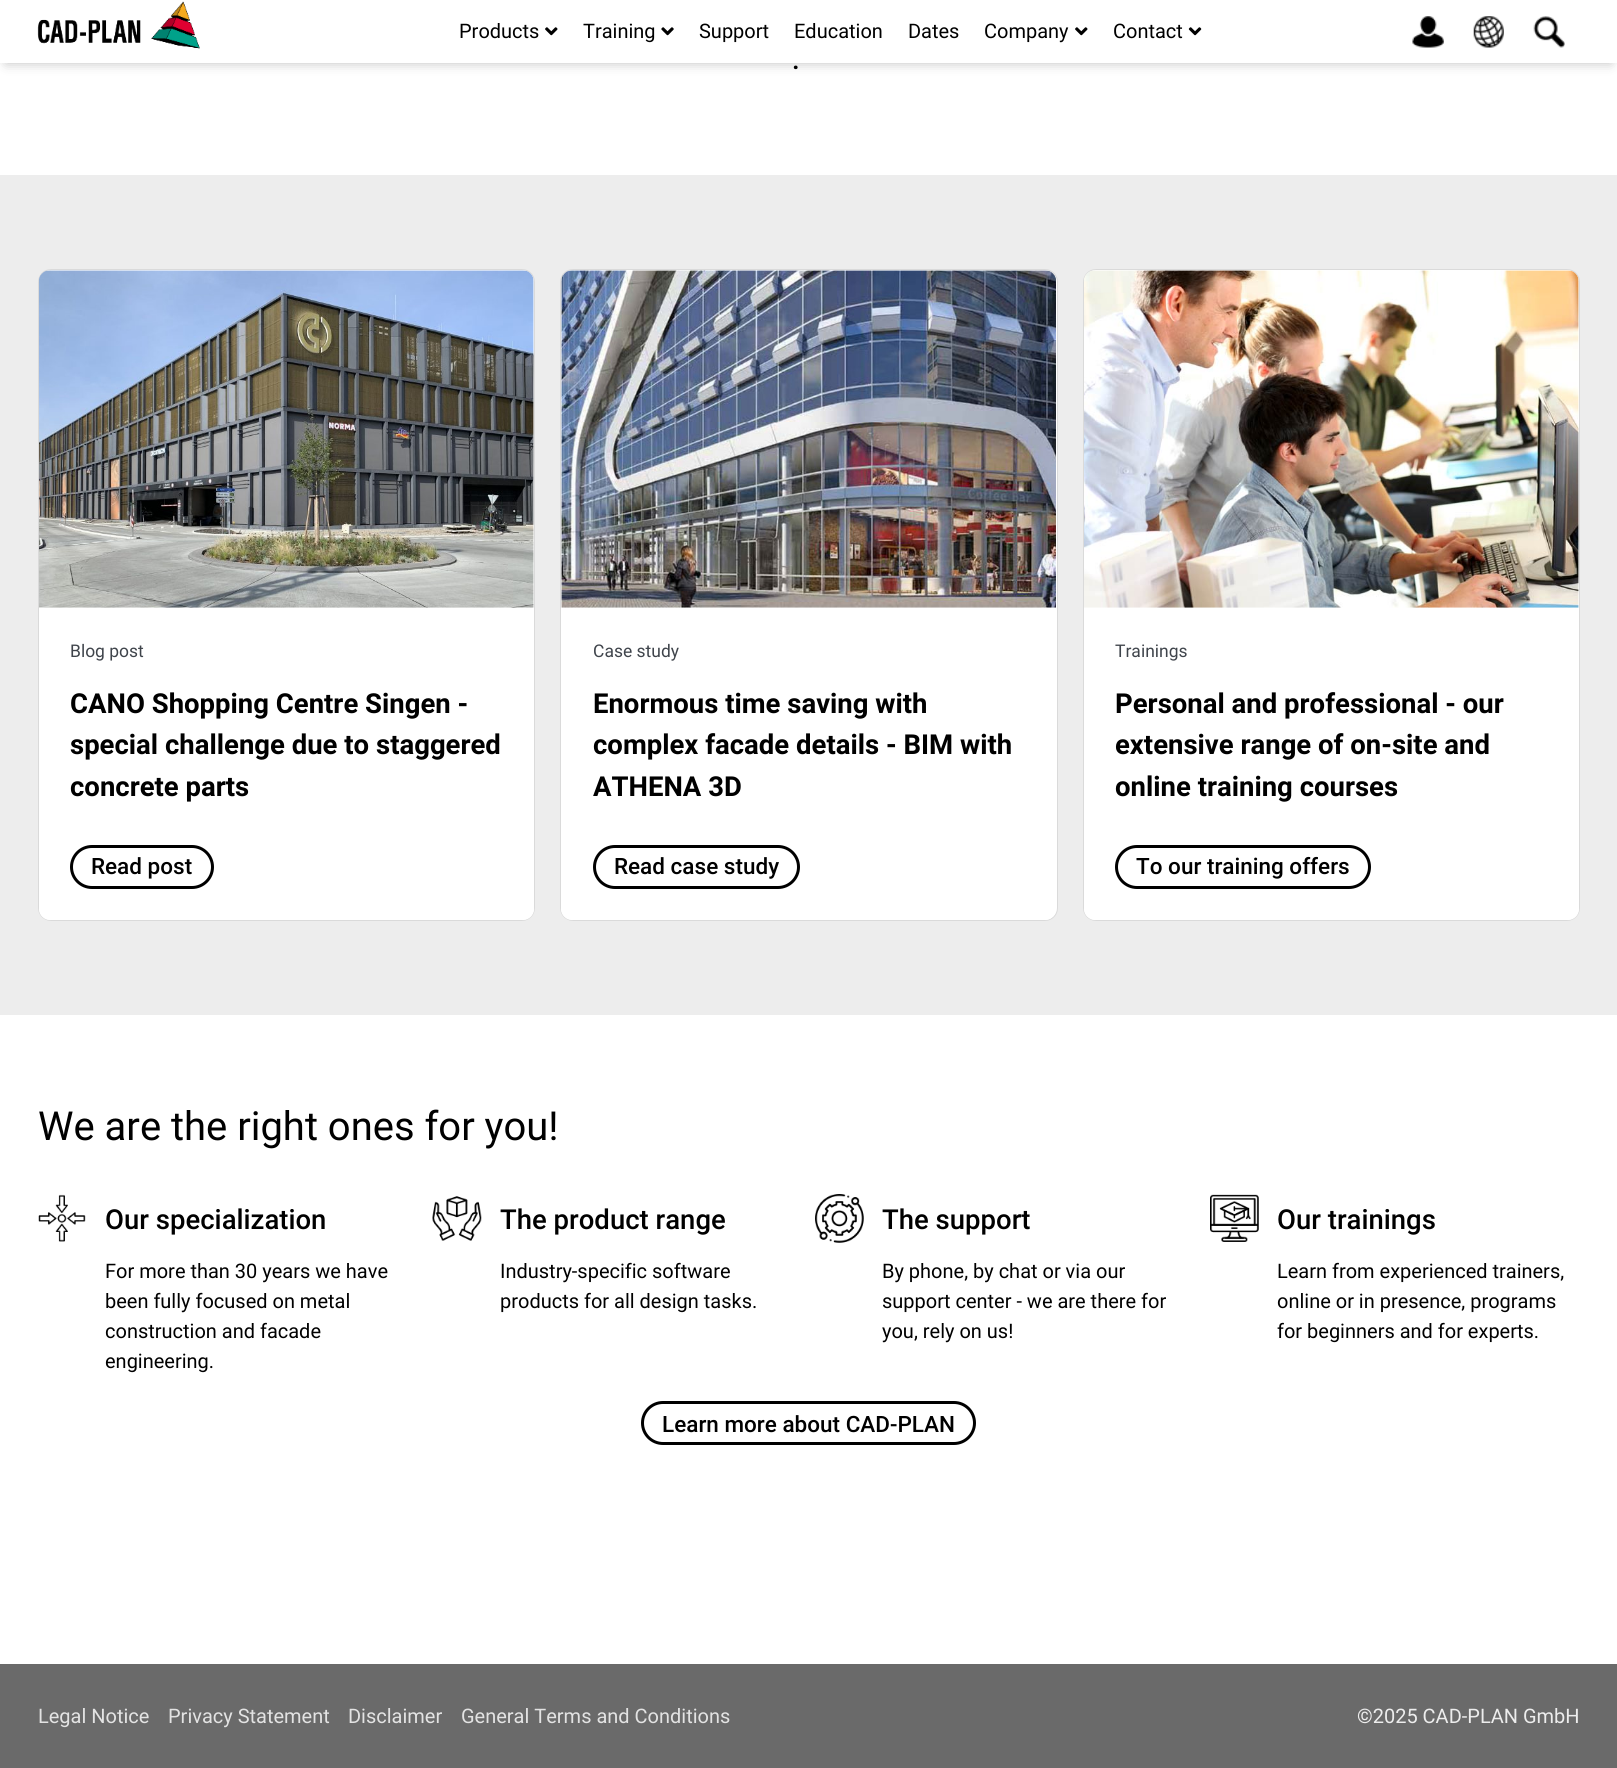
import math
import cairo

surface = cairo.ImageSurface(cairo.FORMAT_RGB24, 1617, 1768)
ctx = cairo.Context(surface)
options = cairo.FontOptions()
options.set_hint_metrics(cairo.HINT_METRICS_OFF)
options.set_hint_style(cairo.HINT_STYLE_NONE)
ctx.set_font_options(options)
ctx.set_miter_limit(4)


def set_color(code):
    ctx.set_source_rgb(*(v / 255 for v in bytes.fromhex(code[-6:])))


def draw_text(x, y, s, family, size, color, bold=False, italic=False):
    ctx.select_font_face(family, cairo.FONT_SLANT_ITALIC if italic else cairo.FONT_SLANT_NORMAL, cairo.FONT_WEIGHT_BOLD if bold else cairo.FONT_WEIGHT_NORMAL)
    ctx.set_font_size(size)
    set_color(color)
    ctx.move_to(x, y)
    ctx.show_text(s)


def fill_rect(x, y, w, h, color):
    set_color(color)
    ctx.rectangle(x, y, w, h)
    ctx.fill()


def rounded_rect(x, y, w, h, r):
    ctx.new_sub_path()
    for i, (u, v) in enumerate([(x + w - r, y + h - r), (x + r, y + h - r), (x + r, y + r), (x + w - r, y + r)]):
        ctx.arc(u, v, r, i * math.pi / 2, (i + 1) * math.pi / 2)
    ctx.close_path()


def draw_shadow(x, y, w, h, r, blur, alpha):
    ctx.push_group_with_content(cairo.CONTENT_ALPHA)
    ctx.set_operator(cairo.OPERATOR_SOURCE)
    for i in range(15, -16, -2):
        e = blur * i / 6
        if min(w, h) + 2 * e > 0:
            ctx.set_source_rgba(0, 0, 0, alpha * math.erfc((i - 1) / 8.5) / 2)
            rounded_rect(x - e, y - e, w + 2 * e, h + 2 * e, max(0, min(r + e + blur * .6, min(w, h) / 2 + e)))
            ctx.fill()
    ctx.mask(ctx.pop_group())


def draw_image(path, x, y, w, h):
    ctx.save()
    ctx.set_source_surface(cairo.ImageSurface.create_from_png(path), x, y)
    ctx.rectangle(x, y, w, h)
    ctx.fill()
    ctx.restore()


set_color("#ffffff")
ctx.paint()
ctx.save()
ctx.set_fill_rule(cairo.FILL_RULE_EVEN_ODD)
ctx.new_path()
ctx.move_to(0, 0)
ctx.line_to(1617, 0)
ctx.line_to(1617, 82)
ctx.line_to(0, 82)
ctx.close_path()
ctx.move_to(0, 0)
ctx.line_to(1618, 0)
ctx.line_to(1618, 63)
ctx.line_to(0, 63)
ctx.close_path()
ctx.clip()
set_color("#000000")
draw_shadow(6, 13, 1605, 50, 0, 6, 0.25)
ctx.restore()
ctx.set_source_rgba(1, 1, 1, 0.88)
ctx.rectangle(0, 62, 1617, 1)
ctx.fill()
draw_image("assets/img1.png", 37, 1, 163, 48)
draw_text(459, 38, "Products", "Roboto", 20, "#000000")
draw_image("assets/img2.png", 545, 27, 13, 9)
draw_text(583, 38, "Training", "Roboto", 20, "#000000")
draw_image("assets/img3.png", 661, 27, 13, 9)
draw_text(699, 38, "Support", "Roboto", 20, "#000000")
draw_text(794, 38, "Education", "Roboto", 20, "#000000")
draw_text(908, 38, "Dates", "Roboto", 20, "#000000")
draw_text(984, 38, "Company", "Roboto", 20, "#000000")
draw_image("assets/img4.png", 1075, 27, 13, 9)
draw_text(1113, 38, "Contact", "Roboto", 20, "#000000")
draw_image("assets/img5.png", 1188, 27, 14, 9)
draw_image("assets/img6.png", 1412, 16, 32, 32)
draw_image("assets/img7.png", 1473, 16, 31, 32)
draw_image("assets/img8.png", 1533, 16, 32, 32)
draw_text(792, 69, ".", "Roboto Medium", 27.5, "#000000")
fill_rect(0, 175, 1617, 840, "#ededed")
set_color("#ffffff")
rounded_rect(38.5, 269.5, 496, 651, 12.5)
ctx.fill_preserve()
set_color("#dadada")
ctx.set_line_width(1)
ctx.stroke()
draw_image("assets/img9.png", 39, 270, 495, 338)
set_color("#ffffff")
ctx.new_path()
ctx.move_to(39, 608)
ctx.line_to(534, 608)
ctx.line_to(534, 909)
ctx.curve_to(534, 915, 529, 920, 523, 920)
ctx.line_to(50, 920)
ctx.curve_to(44, 920, 39, 915, 39, 909)
ctx.close_path()
ctx.fill()
draw_text(70, 657, "Blog post", "Roboto", 17.5, "#3f444b")
draw_text(70, 713, "CANO Shopping Centre Singen -", "Roboto", 27.5, "#000000", bold=True)
draw_text(70, 754, "special challenge due to staggered", "Roboto", 27.5, "#000000", bold=True)
draw_text(70, 796, "concrete parts", "Roboto", 27.5, "#000000", bold=True)
rounded_rect(71.5, 846.5, 141, 41, 20.5)
ctx.set_line_width(3)
ctx.stroke()
draw_text(91, 874, "Read post", "Roboto Medium", 22.5, "#000000")
set_color("#ffffff")
rounded_rect(560.5, 269.5, 497, 651, 12.5)
ctx.fill_preserve()
set_color("#dadada")
ctx.set_line_width(1)
ctx.stroke()
draw_image("assets/img10.png", 561, 270, 495, 338)
set_color("#ffffff")
ctx.new_path()
ctx.move_to(561, 608)
ctx.line_to(1056, 608)
ctx.line_to(1056, 909)
ctx.curve_to(1056, 915, 1051, 920, 1045, 920)
ctx.line_to(572, 920)
ctx.curve_to(566, 920, 561, 915, 561, 909)
ctx.close_path()
ctx.fill()
draw_text(593, 657, "Case study", "Roboto", 17.5, "#3f444b")
draw_text(593, 713, "Enormous time saving with", "Roboto", 27.5, "#000000", bold=True)
draw_text(593, 754, "complex facade details - BIM with", "Roboto", 27.5, "#000000", bold=True)
draw_text(593, 796, "ATHENA 3D", "Roboto", 27.5, "#000000", bold=True)
rounded_rect(594.5, 846.5, 204, 41, 20.5)
ctx.set_line_width(3)
ctx.stroke()
draw_text(614, 874, "Read case study", "Roboto Medium", 22.5, "#000000")
set_color("#ffffff")
rounded_rect(1083.5, 269.5, 496, 651, 12.5)
ctx.fill_preserve()
set_color("#dadada")
ctx.set_line_width(1)
ctx.stroke()
draw_image("assets/img11.png", 1084, 270, 495, 338)
set_color("#ffffff")
ctx.new_path()
ctx.move_to(1084, 608)
ctx.line_to(1579, 608)
ctx.line_to(1579, 909)
ctx.curve_to(1579, 915, 1574, 920, 1568, 920)
ctx.line_to(1095, 920)
ctx.curve_to(1089, 920, 1084, 915, 1084, 909)
ctx.close_path()
ctx.fill()
draw_text(1115, 657, "Trainings", "Roboto", 17.5, "#3f444b")
draw_text(1115, 713, "Personal and professional - our", "Roboto", 27.5, "#000000", bold=True)
draw_text(1115, 754, "extensive range of on-site and", "Roboto", 27.5, "#000000", bold=True)
draw_text(1115, 796, "online training courses", "Roboto", 27.5, "#000000", bold=True)
rounded_rect(1116.5, 846.5, 253, 41, 20.5)
ctx.set_line_width(3)
ctx.stroke()
draw_text(1136, 874, "To our training offers", "Roboto Medium", 22.5, "#000000")
draw_text(38, 1140, "We are the right ones for you!", "Roboto", 40, "#000000")
draw_image("assets/img12.png", 38, 1194, 48, 48)
draw_text(105, 1229, "Our specialization", "Roboto Medium", 27.5, "#000000")
draw_text(105, 1278, "For more than 30 years we have", "Roboto", 20, "#000000")
draw_text(105, 1308, "been fully focused on metal", "Roboto", 20, "#000000")
draw_text(105, 1338, "construction and facade", "Roboto", 20, "#000000")
draw_text(105, 1368, "engineering.", "Roboto", 20, "#000000")
draw_image("assets/img13.png", 432, 1196, 50, 45)
draw_text(500, 1229, "The product range", "Roboto Medium", 27.5, "#000000")
draw_text(500, 1278, "Industry-specific software", "Roboto", 20, "#000000")
draw_text(500, 1308, "products for all design tasks.", "Roboto", 20, "#000000")
draw_image("assets/img14.png", 815, 1194, 49, 49)
draw_text(882, 1229, "The support", "Roboto Medium", 27.5, "#000000")
draw_text(882, 1278, "By phone, by chat or via our", "Roboto", 20, "#000000")
draw_text(882, 1308, "support center - we are there for", "Roboto", 20, "#000000")
draw_text(882, 1338, "you, rely on us!", "Roboto", 20, "#000000")
draw_image("assets/img15.png", 1210, 1194, 49, 48)
draw_text(1277, 1229, "Our trainings", "Roboto Medium", 27.5, "#000000")
draw_text(1277, 1278, "Learn from experienced trainers,", "Roboto", 20, "#000000")
draw_text(1277, 1308, "online or in presence, programs", "Roboto", 20, "#000000")
draw_text(1277, 1338, "for beginners and for experts.", "Roboto", 20, "#000000")
rounded_rect(642.5, 1402.5, 332, 41, 20.5)
ctx.stroke()
draw_text(662, 1432, "Learn more about CAD-PLAN", "Roboto Medium", 22.5, "#000000")
fill_rect(0, 1664, 1617, 104, "#6a6a6a")
draw_text(38, 1723, "Legal Notice", "Roboto", 20, "#e3e3e3")
draw_text(168, 1723, "Privacy Statement", "Roboto", 20, "#e3e3e3")
draw_text(348, 1723, "Disclaimer", "Roboto", 20, "#e3e3e3")
draw_text(461, 1723, "General Terms and Conditions", "Roboto", 20, "#e3e3e3")
draw_text(1357, 1723, "©2025 CAD-PLAN GmbH", "Roboto", 20, "#ededed")
surface.write_to_png("output.png")
